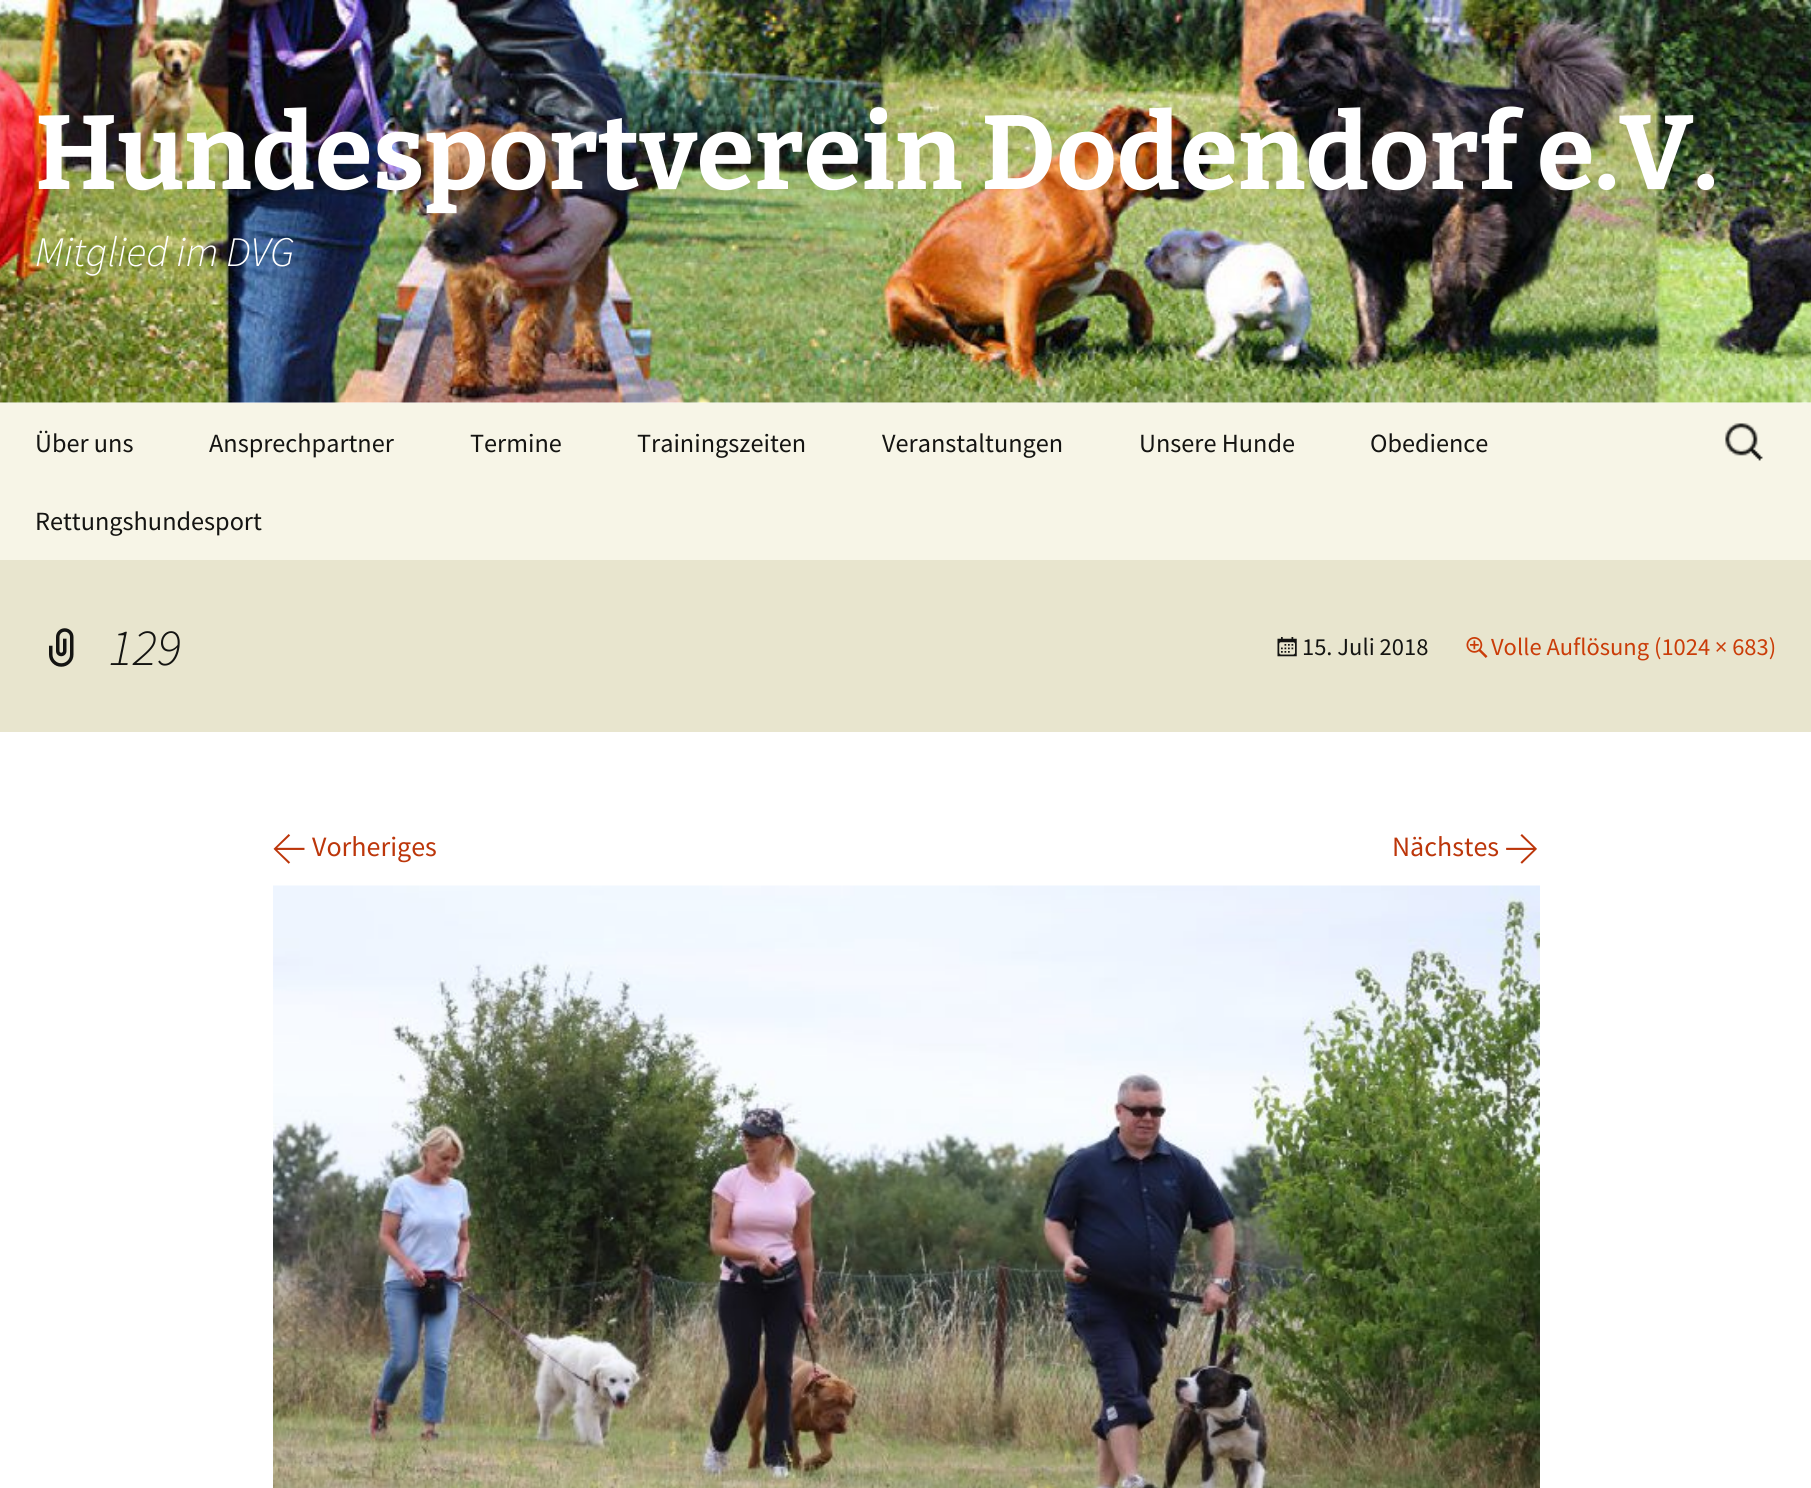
import math
import cairo

surface = cairo.ImageSurface(cairo.FORMAT_RGB24, 1811, 1488)
ctx = cairo.Context(surface)
options = cairo.FontOptions()
options.set_hint_metrics(cairo.HINT_METRICS_OFF)
options.set_hint_style(cairo.HINT_STYLE_NONE)
ctx.set_font_options(options)
ctx.set_miter_limit(4)


def set_color(code):
    ctx.set_source_rgb(*(v / 255 for v in bytes.fromhex(code[-6:])))


def draw_text(x, y, s, family, size, color, bold=False, italic=False):
    ctx.select_font_face(family, cairo.FONT_SLANT_ITALIC if italic else cairo.FONT_SLANT_NORMAL, cairo.FONT_WEIGHT_BOLD if bold else cairo.FONT_WEIGHT_NORMAL)
    ctx.set_font_size(size)
    set_color(color)
    ctx.move_to(x, y)
    ctx.show_text(s)


def fill_rect(x, y, w, h, color):
    set_color(color)
    ctx.rectangle(x, y, w, h)
    ctx.fill()


def draw_image(path, x, y, w, h):
    ctx.save()
    ctx.set_source_surface(cairo.ImageSurface.create_from_png(path), x, y)
    ctx.rectangle(x, y, w, h)
    ctx.fill()
    ctx.restore()


set_color("#ffffff")
ctx.paint()
draw_image("assets/img1.png", 0, 0, 1811, 403)
draw_text(35, 189, "Hundesportverein Dodendorf e.V.", "Bitter", 105, "#ffffff", bold=True)
draw_text(35, 266, "Mitglied im DVG", "Source Sans Pro Light", 42, "#ffffff", italic=True)
fill_rect(0, 403, 1811, 157, "#f7f5e7")
draw_text(35, 452, "Über uns", "Source Sans Pro", 26.25, "#141412")
draw_text(209, 452, "Ansprechpartner", "Source Sans Pro", 26.25, "#141412")
draw_text(470, 452, "Termine", "Source Sans Pro", 26.25, "#141412")
draw_text(637, 452, "Trainingszeiten", "Source Sans Pro", 26.25, "#141412")
draw_text(882, 452, "Veranstaltungen", "Source Sans Pro", 26.25, "#141412")
draw_text(1139, 452, "Unsere Hunde", "Source Sans Pro", 26.25, "#141412")
draw_text(1370, 452, "Obedience", "Source Sans Pro", 26.25, "#141412")
draw_text(35, 530, "Rettungshundesport", "Source Sans Pro", 26.25, "#141412")
draw_image("assets/img2.png", 1725, 423, 38, 38)
fill_rect(0, 560, 1811, 172, "#e8e5ce")
draw_image("assets/img3.png", 49, 628, 25, 39)
draw_text(109, 665, "129", "Source Sans Pro Light", 52, "#141412", italic=True)
draw_image("assets/img4.png", 1277, 637, 20, 20)
draw_text(1302, 655, "15. Juli 2018", "Source Sans Pro", 24.5, "#141412")
draw_image("assets/img5.png", 1466, 637, 22, 21)
draw_text(1491, 655, "Volle Auflösung (1024 × 683)", "Source Sans Pro", 24.5, "#ca3c08")
draw_text(272, 863, "←", "Source Sans Pro Light", 56, "#bc360a")
draw_text(312, 856, "Vorheriges", "Source Sans Pro", 28, "#bc360a")
draw_text(1392, 856, "Nächstes", "Source Sans Pro", 28, "#bc360a")
draw_text(1504, 863, "→", "Source Sans Pro Light", 56, "#bc360a")
draw_image("assets/img6.png", 273, 885, 1267, 603)
surface.write_to_png("output.png")
